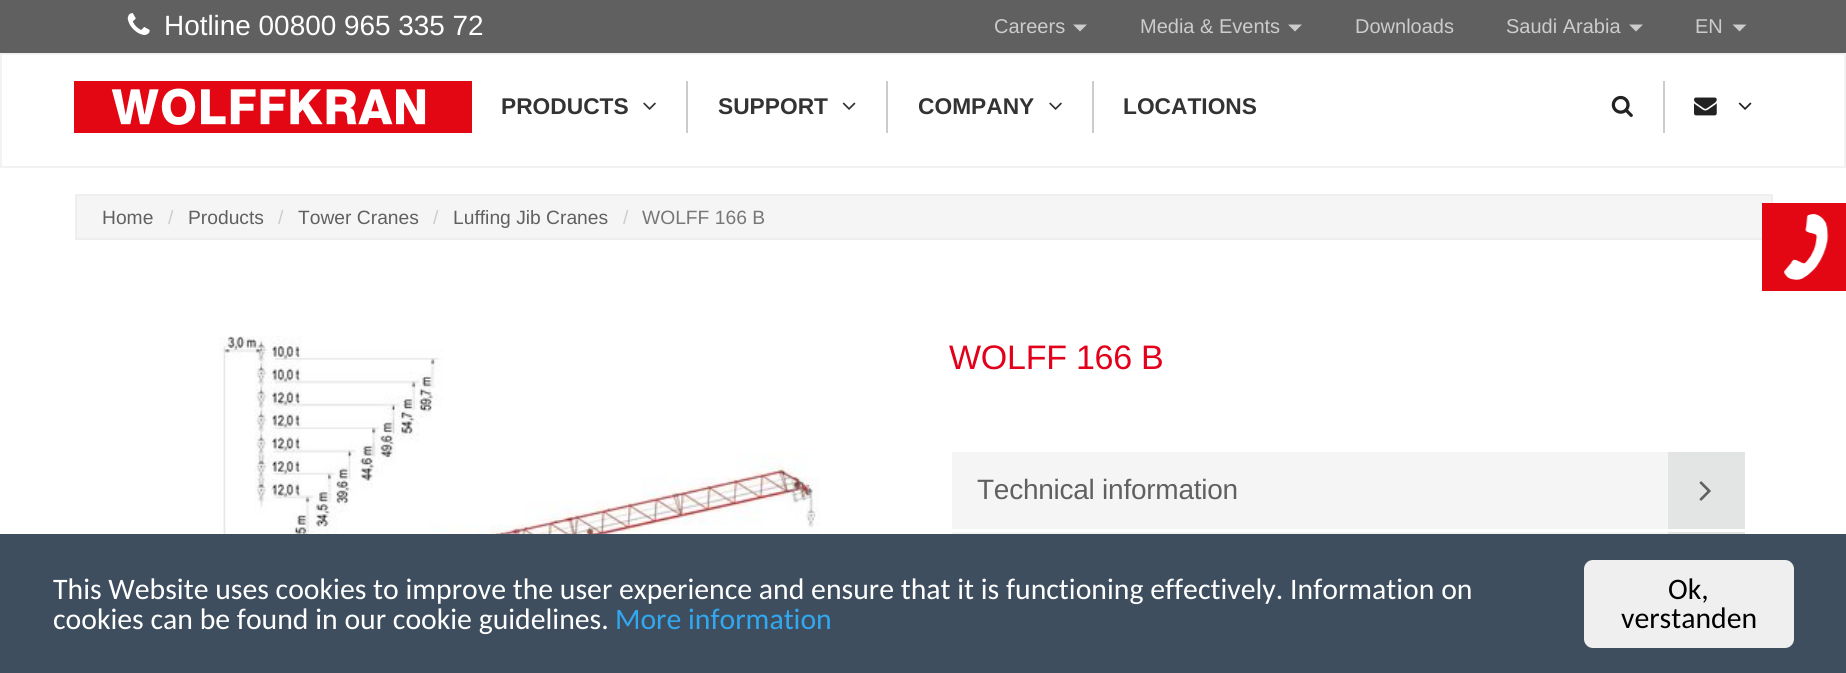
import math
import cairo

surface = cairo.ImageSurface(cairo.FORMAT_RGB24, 1846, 673)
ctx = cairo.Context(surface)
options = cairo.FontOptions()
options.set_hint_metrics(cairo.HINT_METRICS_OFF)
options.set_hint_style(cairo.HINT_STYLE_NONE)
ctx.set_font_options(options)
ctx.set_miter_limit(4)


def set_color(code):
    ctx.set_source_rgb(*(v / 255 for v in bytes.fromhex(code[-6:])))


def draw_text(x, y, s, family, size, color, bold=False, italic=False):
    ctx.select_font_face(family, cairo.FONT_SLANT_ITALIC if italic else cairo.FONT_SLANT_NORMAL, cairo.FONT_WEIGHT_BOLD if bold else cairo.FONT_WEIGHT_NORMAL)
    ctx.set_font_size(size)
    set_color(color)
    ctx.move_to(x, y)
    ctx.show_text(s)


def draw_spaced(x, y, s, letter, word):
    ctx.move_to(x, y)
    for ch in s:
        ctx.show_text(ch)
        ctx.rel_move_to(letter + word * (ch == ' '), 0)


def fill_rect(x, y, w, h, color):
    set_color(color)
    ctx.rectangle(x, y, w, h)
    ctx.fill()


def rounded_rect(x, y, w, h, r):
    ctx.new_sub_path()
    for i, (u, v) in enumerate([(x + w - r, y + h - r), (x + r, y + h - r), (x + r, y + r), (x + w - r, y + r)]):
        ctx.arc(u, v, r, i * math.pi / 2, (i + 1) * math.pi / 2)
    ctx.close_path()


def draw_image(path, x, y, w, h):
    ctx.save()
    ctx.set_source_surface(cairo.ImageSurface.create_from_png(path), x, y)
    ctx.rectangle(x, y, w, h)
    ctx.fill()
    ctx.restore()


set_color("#ffffff")
ctx.paint()
fill_rect(0, 0, 1846, 53, "#606060")
draw_image("assets/img1.png", 127, 13, 23, 22)
draw_text(164, 35, "Hotline 00800 965 335 72", "Liberation Sans", 27.9, "#ffffff")
draw_text(994, 33, "Careers", "Liberation Sans", 20, "#cccccc")
ctx.new_path()
ctx.move_to(1073, 24.5)
ctx.line_to(1087, 24.5)
ctx.line_to(1080, 31.5)
ctx.close_path()
ctx.fill()
draw_text(1140, 33, "Media & Events", "Liberation Sans", 20, "#cccccc")
ctx.new_path()
ctx.move_to(1288, 24.5)
ctx.line_to(1302, 24.5)
ctx.line_to(1295, 31.5)
ctx.close_path()
ctx.fill()
draw_text(1355, 33, "Downloads", "Liberation Sans", 20, "#cccccc")
draw_text(1506, 33, "Saudi Arabia", "Liberation Sans", 20, "#cccccc")
ctx.new_path()
ctx.move_to(1629, 24.5)
ctx.line_to(1643, 24.5)
ctx.line_to(1636, 31.5)
ctx.close_path()
ctx.fill()
draw_text(1695, 33, "EN", "Liberation Sans", 20, "#cccccc")
ctx.new_path()
ctx.move_to(1732.5, 24.5)
ctx.line_to(1746.5, 24.5)
ctx.line_to(1739.5, 31.5)
ctx.close_path()
ctx.fill()
ctx.rectangle(1, 54, 1844, 113)
set_color("#f2f2f2")
ctx.stroke()
draw_image("assets/img2.png", 74, 81, 398, 52)
draw_text(501, 114, "PRODUCTS", "Liberation Sans", 22.75, "#333333", bold=True)
draw_image("assets/img3.png", 643, 102, 13, 8)
fill_rect(686, 81, 2, 52, "#cccccc")
draw_text(718, 114, "SUPPORT", "Liberation Sans", 22.75, "#333333", bold=True)
draw_image("assets/img4.png", 842, 102, 14, 8)
fill_rect(886, 81, 2, 52, "#cccccc")
draw_text(918, 114, "COMPANY", "Liberation Sans", 22.75, "#333333", bold=True)
draw_image("assets/img3.png", 1049, 102, 13, 8)
fill_rect(1092, 81, 2, 52, "#cccccc")
draw_text(1123, 114, "LOCATIONS", "Liberation Sans", 22.75, "#333333", bold=True)
draw_image("assets/img5.png", 1611, 95, 22, 22)
fill_rect(1663, 81, 2, 52, "#cccccc")
draw_image("assets/img6.png", 1694, 97, 23, 19)
draw_image("assets/img7.png", 1738, 102, 14, 8)
set_color("#f5f5f5")
ctx.rectangle(76, 195, 1696, 44)
ctx.fill_preserve()
set_color("#eeeeee")
ctx.stroke()
fill_rect(1762, 203, 84, 88, "#e30613")
draw_image("assets/img8.png", 1783, 214, 46, 66)
draw_text(102, 224, "Home", "Liberation Sans", 19.25, "#606060")
draw_text(168, 224, "/", "Liberation Sans", 19.25, "#cccccc")
draw_text(188, 224, "Products", "Liberation Sans", 19.25, "#606060")
draw_text(278, 224, "/", "Liberation Sans", 19.25, "#cccccc")
draw_text(298, 224, "Tower Cranes", "Liberation Sans", 19.25, "#606060")
draw_text(433, 224, "/", "Liberation Sans", 19.25, "#cccccc")
draw_text(453, 224, "Luffing Jib Cranes", "Liberation Sans", 19.25, "#606060")
draw_text(623, 224, "/", "Liberation Sans", 19.25, "#cccccc")
draw_text(642, 224, "WOLFF 166 B", "Liberation Sans", 19.25, "#777777")
draw_image("assets/img9.png", 108, 336, 772, 198)
ctx.set_font_size(34)
set_color("#e2001a")
draw_spaced(949, 369, "WOLFF 166 B", -0.25, 0)
fill_rect(952, 452, 716, 77, "#f5f5f5")
ctx.set_font_size(28)
set_color("#606060")
draw_spaced(977, 499, "Technical information", -0.25, 0)
fill_rect(1668, 452, 77, 77, "#e3e4e4")
draw_image("assets/img10.png", 1699, 481, 12, 20)
fill_rect(952, 532, 716, 2, "#f5f5f5")
fill_rect(1668, 532, 77, 2, "#e3e4e4")
fill_rect(0, 534, 1846, 139, "#3e4e5f")
draw_text(53, 599, "This Website uses cookies to improve the user experience and ensure that it is functioning effectively. Information on", "Carlito", 29.75, "#ffffff")
draw_text(53, 629, "cookies can be found in our cookie guidelines.", "Carlito", 29.75, "#ffffff")
draw_text(615, 629, "More information", "Carlito", 29.75, "#31a8f0")
set_color("#efefef")
rounded_rect(1584, 560, 210, 88, 9)
ctx.fill()
draw_text(1668, 599, "Ok,", "Carlito", 29.75, "#000000")
draw_text(1621, 628, "verstanden", "Carlito", 29.75, "#000000")
surface.write_to_png("output.png")
